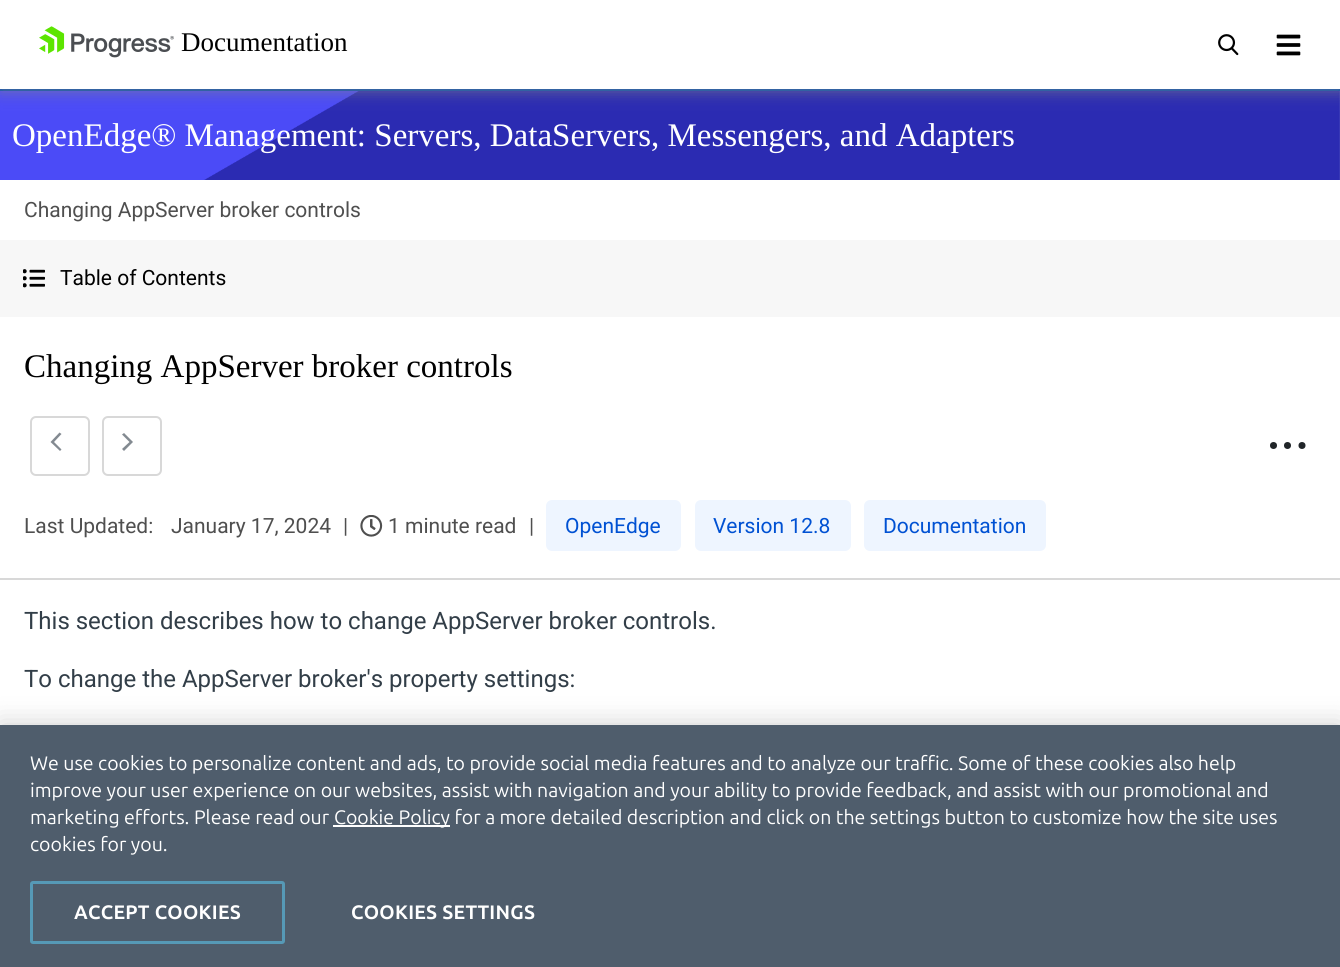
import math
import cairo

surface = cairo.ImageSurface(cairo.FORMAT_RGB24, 1340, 967)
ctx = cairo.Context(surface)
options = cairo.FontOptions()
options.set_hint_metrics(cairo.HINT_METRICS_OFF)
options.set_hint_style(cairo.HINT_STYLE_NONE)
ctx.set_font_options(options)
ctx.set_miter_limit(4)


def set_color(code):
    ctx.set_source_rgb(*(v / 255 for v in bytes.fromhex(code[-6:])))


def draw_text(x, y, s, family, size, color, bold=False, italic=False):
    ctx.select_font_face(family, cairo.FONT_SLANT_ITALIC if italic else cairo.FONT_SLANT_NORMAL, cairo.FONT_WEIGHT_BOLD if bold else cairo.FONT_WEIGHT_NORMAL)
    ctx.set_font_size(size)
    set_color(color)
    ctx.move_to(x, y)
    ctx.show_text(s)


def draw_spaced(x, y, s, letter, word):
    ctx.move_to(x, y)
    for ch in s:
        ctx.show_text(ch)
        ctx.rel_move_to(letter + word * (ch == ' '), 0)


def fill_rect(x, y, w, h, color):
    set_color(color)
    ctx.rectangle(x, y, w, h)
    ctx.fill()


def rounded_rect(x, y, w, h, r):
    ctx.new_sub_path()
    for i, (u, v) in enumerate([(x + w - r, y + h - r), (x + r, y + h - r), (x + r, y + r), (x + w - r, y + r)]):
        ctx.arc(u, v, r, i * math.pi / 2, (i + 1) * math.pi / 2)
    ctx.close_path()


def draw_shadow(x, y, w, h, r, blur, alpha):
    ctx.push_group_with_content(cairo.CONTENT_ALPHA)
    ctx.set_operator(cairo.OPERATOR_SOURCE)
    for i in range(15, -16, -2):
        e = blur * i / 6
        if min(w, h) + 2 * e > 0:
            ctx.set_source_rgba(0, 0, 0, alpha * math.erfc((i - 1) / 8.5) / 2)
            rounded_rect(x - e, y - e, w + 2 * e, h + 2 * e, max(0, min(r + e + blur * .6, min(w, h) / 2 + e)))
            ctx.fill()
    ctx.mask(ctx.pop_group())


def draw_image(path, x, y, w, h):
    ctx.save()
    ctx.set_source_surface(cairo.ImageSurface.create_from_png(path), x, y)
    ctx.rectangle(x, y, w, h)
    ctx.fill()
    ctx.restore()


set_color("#ffffff")
ctx.paint()
fill_rect(0, 89, 1340, 2, "#024db5")
draw_image("assets/img4.png", 0, 91, 1340, 89)
ctx.save()
ctx.set_fill_rule(cairo.FILL_RULE_EVEN_ODD)
ctx.new_path()
ctx.move_to(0, 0)
ctx.line_to(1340, 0)
ctx.line_to(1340, 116)
ctx.line_to(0, 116)
ctx.close_path()
ctx.move_to(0, 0)
ctx.line_to(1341, 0)
ctx.line_to(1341, 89)
ctx.line_to(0, 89)
ctx.close_path()
ctx.clip()
set_color("#838486")
draw_shadow(0, 3, 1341, 89, 0, 7.5, 0.62)
ctx.restore()
draw_image("assets/img1.png", 39, 26, 135, 32)
draw_text(181, 51, "Documentation", "Liberation Serif", 27, "#000000")
draw_image("assets/img2.png", 1218, 34, 21, 22)
draw_image("assets/img3.png", 1276, 34, 25, 22)
draw_text(12, 146, "OpenEdge® Management: Servers, DataServers, Messengers, and Adapters", "Liberation Serif", 33, "#ffffff")
draw_text(24, 217, "Changing AppServer broker controls", "Roboto", 21, "#4f4f4f")
fill_rect(0, 240, 1340, 77, "#f7f7f7")
draw_image("assets/img5.png", 23, 269, 22, 19)
draw_text(60, 285, "Table of Contents", "Roboto", 21, "#000000")
fill_rect(0, 578, 1340, 2, "#d8d8d8")
draw_text(24, 377, "Changing AppServer broker controls", "Liberation Serif", 33, "#000000")
rounded_rect(31, 417, 58, 58, 5)
set_color("#d8d8d8")
ctx.stroke()
set_color("#838a91")
ctx.new_path()
ctx.move_to(61.5, 434)
ctx.line_to(59.5, 432.5)
ctx.line_to(50.5, 442)
ctx.line_to(60, 451)
ctx.line_to(61.5, 449.5)
ctx.line_to(54, 442)
ctx.close_path()
ctx.fill()
rounded_rect(103, 417, 58, 58, 5)
set_color("#d8d8d8")
ctx.stroke()
set_color("#838a91")
ctx.new_path()
ctx.move_to(122, 449)
ctx.line_to(124, 451)
ctx.line_to(133, 442)
ctx.line_to(124, 433)
ctx.line_to(122, 434.5)
ctx.line_to(129.5, 442)
ctx.close_path()
ctx.fill()
set_color("#212529")
ctx.arc(1273.5, 445.5, 3.5, 0, 2 * math.pi)
ctx.fill()
ctx.arc(1287.5, 445.5, 3.5, 0, 2 * math.pi)
ctx.fill()
ctx.arc(1302, 445.5, 3.5, 0, 2 * math.pi)
ctx.fill()
draw_text(24, 533, "Last Updated:", "Roboto", 21, "#4f4f4f")
draw_text(171, 533, "January 17, 2024", "Roboto", 21, "#4f4f4f")
draw_text(343, 533, "|", "Roboto", 21, "#4f4f4f")
draw_image("assets/img6.png", 360, 515, 23, 22)
draw_text(388, 533, "1 minute read", "Roboto", 21, "#4f4f4f")
draw_text(529, 533, "|", "Roboto", 21, "#4f4f4f")
set_color("#eef5ff")
rounded_rect(546, 500, 135, 51, 6)
ctx.fill()
draw_text(565, 533, "OpenEdge", "Roboto", 21, "#0051d3")
set_color("#eef5ff")
rounded_rect(695, 500, 156, 51, 6)
ctx.fill()
draw_text(713, 533, "Version 12.8", "Roboto", 21, "#0051d3")
set_color("#eef5ff")
rounded_rect(864, 500, 182, 51, 6)
ctx.fill()
draw_text(883, 533, "Documentation", "Roboto", 21, "#0051d3")
draw_text(24, 629, "This section describes how to change AppServer broker controls.", "Roboto", 24, "#323e48")
draw_text(24, 687, "To change the AppServer broker's property settings:", "Roboto", 24, "#323e48")
set_color("#000000")
draw_shadow(0, 725, 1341, 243, 0, 13.5, 0.2)
fill_rect(0, 725, 1340, 242, "#4f5d6c")
draw_text(30, 770, "We use cookies to personalize content and ads, to provide social media features and to analyze our traffic. Some of these cookies also help", "Ubuntu", 19.5, "#ffffff")
draw_text(30, 797, "improve your user experience on our websites, assist with navigation and your ability to provide feedback, and assist with our promotional and", "Ubuntu", 19.5, "#ffffff")
draw_text(30, 824, "marketing efforts. Please read our", "Ubuntu", 19.5, "#ffffff")
fill_rect(333, 825, 117, 2, "#ffffff")
draw_text(334, 824, "Cookie Policy for a more detailed description and click on the settings button to customize how the site uses", "Ubuntu", 19.5, "#ffffff")
draw_text(30, 851, "cookies for you.", "Ubuntu", 19.5, "#ffffff")
rounded_rect(31.5, 882.5, 252, 60, 1.5)
set_color("#5699b6")
ctx.set_line_width(3)
ctx.stroke()
ctx.select_font_face("Ubuntu", cairo.FONT_SLANT_NORMAL, cairo.FONT_WEIGHT_BOLD)
set_color("#ffffff")
draw_spaced(74, 919, "ACCEPT COOKIES", 0.25, 0)
draw_spaced(351, 919, "COOKIES SETTINGS", 0.25, 0)
surface.write_to_png("output.png")
